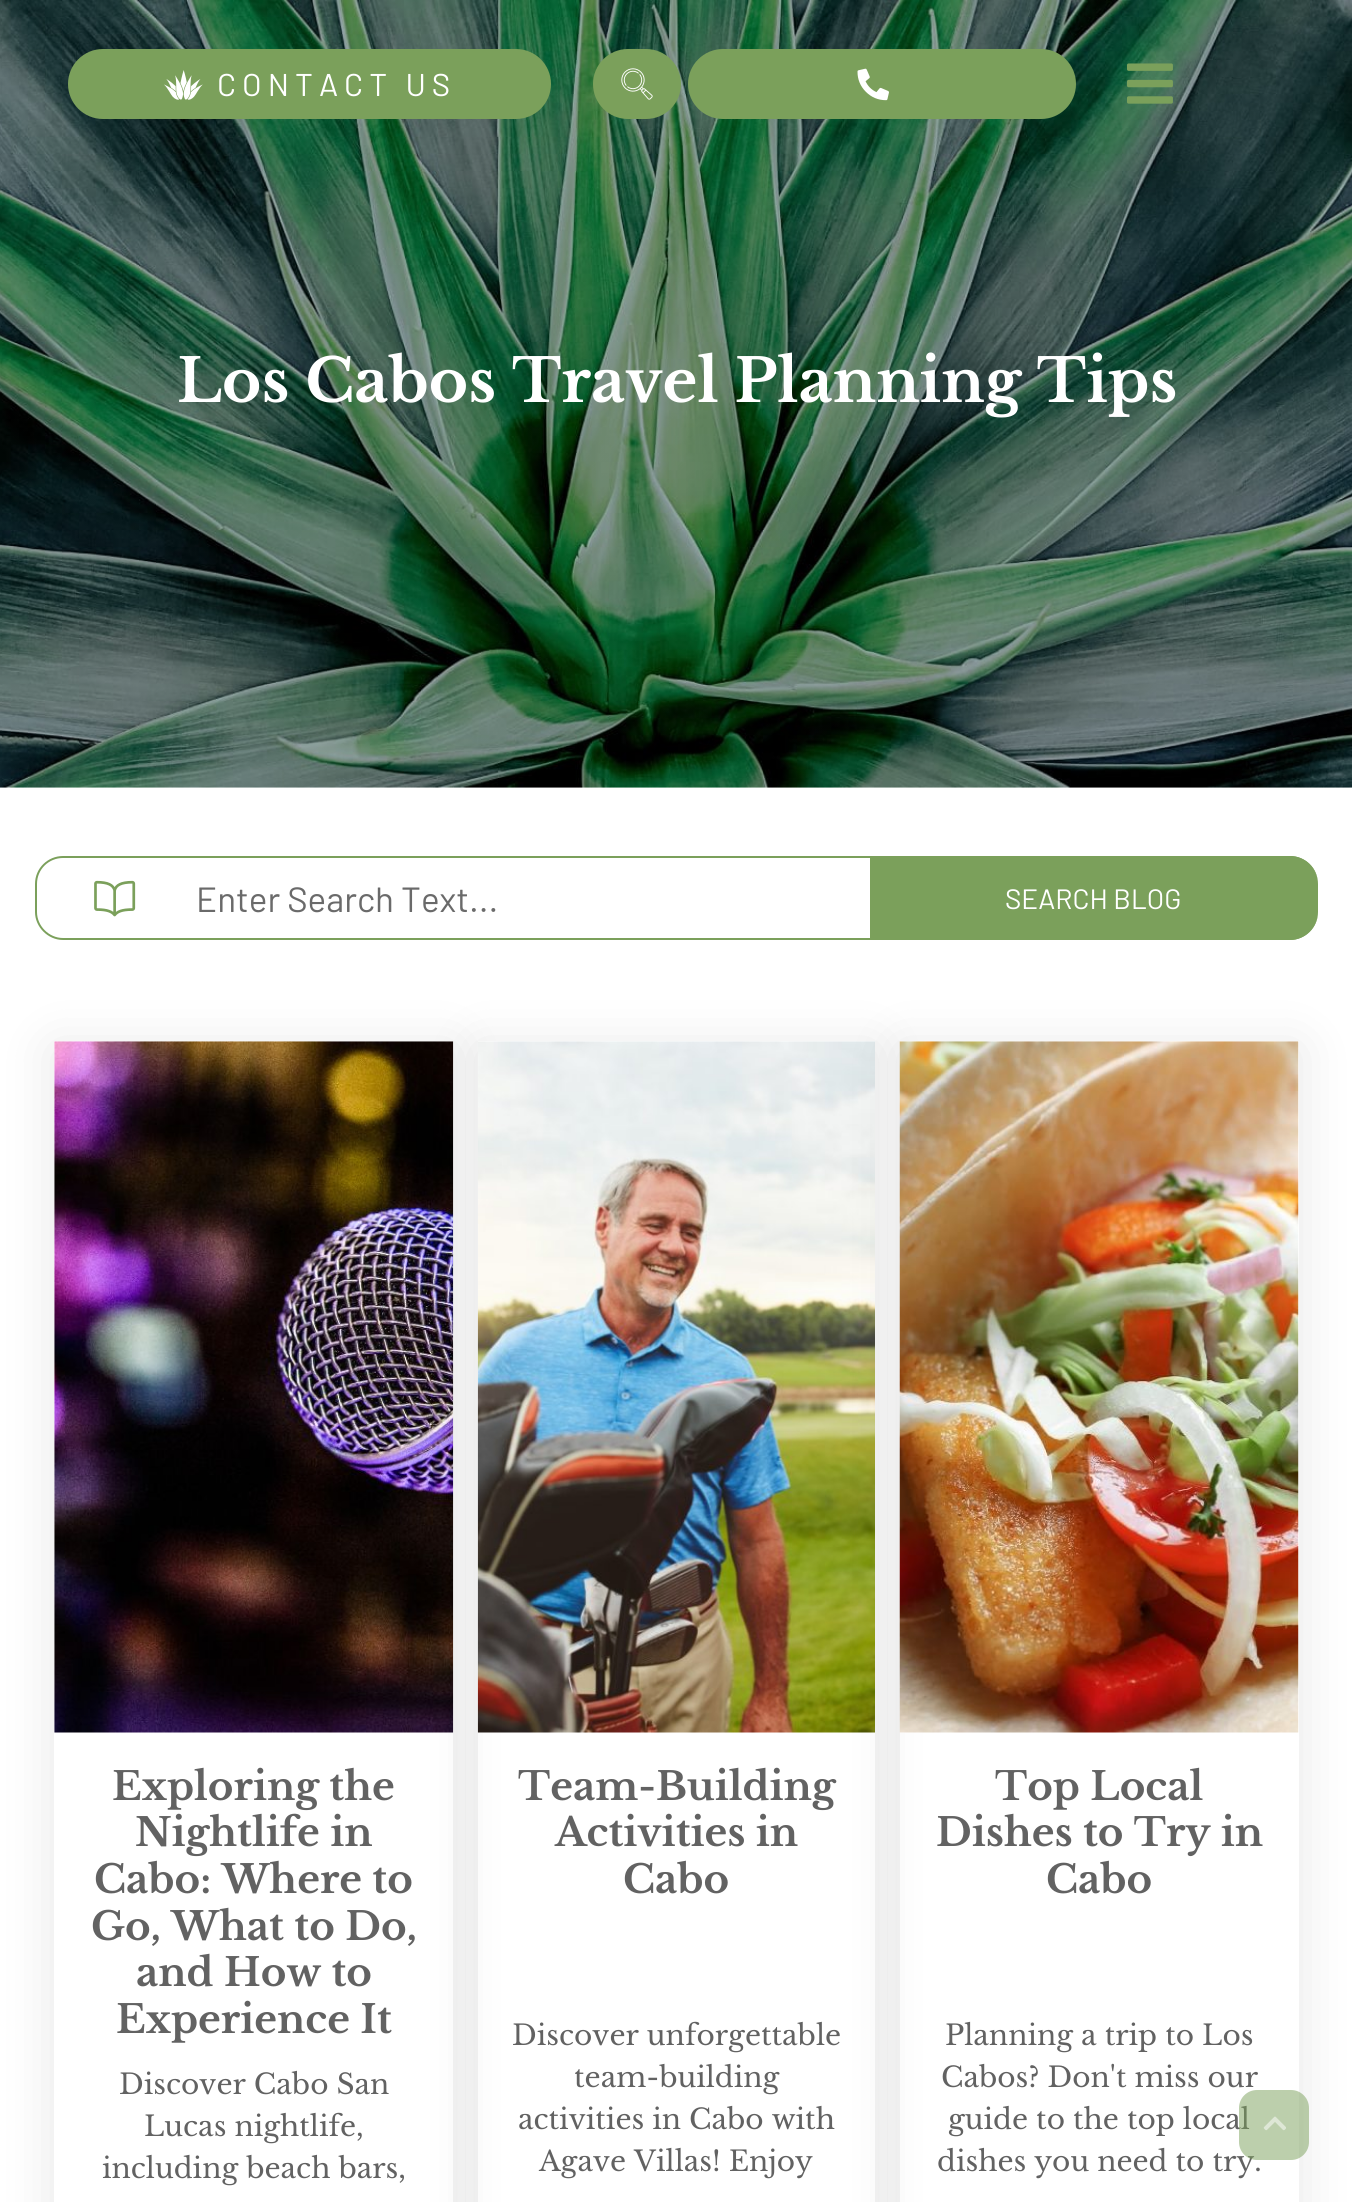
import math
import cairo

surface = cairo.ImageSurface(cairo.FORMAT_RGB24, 1352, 2202)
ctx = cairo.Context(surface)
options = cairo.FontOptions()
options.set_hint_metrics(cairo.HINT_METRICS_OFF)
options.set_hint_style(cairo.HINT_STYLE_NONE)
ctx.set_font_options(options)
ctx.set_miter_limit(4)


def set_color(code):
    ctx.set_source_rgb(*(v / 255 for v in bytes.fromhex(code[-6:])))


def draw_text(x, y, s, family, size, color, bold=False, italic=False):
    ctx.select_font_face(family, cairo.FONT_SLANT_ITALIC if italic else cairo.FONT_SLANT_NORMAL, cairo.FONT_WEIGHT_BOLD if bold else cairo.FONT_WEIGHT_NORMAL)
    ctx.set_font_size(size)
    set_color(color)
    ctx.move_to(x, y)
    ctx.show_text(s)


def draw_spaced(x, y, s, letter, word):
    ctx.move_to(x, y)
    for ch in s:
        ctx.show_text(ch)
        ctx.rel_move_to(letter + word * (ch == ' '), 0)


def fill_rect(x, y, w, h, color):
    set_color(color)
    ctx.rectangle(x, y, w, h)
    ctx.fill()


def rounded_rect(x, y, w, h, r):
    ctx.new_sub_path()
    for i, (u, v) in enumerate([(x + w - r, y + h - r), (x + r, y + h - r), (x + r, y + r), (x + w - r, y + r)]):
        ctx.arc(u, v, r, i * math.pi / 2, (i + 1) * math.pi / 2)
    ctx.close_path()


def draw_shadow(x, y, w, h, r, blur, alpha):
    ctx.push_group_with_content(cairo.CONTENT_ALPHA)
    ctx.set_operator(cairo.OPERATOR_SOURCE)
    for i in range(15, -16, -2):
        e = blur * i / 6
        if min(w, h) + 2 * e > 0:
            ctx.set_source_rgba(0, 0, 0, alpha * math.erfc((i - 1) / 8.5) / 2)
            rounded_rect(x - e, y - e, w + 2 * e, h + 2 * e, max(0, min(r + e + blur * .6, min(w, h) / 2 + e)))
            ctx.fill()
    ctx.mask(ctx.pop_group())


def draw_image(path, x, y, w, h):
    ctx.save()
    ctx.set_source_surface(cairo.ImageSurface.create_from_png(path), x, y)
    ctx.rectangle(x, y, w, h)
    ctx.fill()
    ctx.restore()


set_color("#ffffff")
ctx.paint()
draw_image("assets/img5.png", 0, 0, 1352, 788)
set_color("#7ba05b")
rounded_rect(68, 49, 483, 70, 35)
ctx.fill()
draw_image("assets/img1.png", 164, 70, 39, 30)
ctx.select_font_face("Barlow")
ctx.set_font_size(31.5)
set_color("#ffffff")
draw_spaced(217, 96, "CONTACT US", 6, 0)
set_color("#7ba05b")
rounded_rect(593, 49, 88, 70, 35)
ctx.fill()
draw_image("assets/img2.png", 621, 68, 32, 32)
rounded_rect(688, 49, 388, 70, 35)
ctx.fill()
draw_image("assets/img3.png", 857, 68, 32, 33)
draw_image("assets/img4.png", 1127, 63, 46, 41)
draw_text(177, 402, "Los Cabos Travel Planning Tips", "Libre Baskerville", 59.7, "#ffffff", bold=True)
set_color("#7ba05b")
ctx.set_fill_rule(cairo.FILL_RULE_EVEN_ODD)
ctx.new_path()
ctx.move_to(63, 856)
ctx.line_to(1290, 856)
ctx.curve_to(1305, 856, 1318, 868, 1318, 884)
ctx.line_to(1318, 912)
ctx.curve_to(1318, 927, 1305, 940, 1290, 940)
ctx.line_to(63, 940)
ctx.curve_to(48, 940, 35, 927, 35, 912)
ctx.line_to(35, 884)
ctx.curve_to(35, 868, 48, 856, 63, 856)
ctx.close_path()
ctx.move_to(63, 858)
ctx.line_to(1290, 858)
ctx.curve_to(1305, 858, 1318, 869, 1318, 884)
ctx.line_to(1318, 912)
ctx.curve_to(1318, 926, 1305, 938, 1290, 938)
ctx.line_to(63, 938)
ctx.curve_to(49, 938, 37, 926, 37, 912)
ctx.line_to(37, 884)
ctx.curve_to(37, 869, 49, 858, 63, 858)
ctx.close_path()
ctx.fill()
draw_image("assets/img6.png", 94, 880, 42, 37)
draw_text(196, 912, "Enter Search Text...", "Barlow", 35, "#6a6a6a")
set_color("#7ba05b")
ctx.new_path()
ctx.move_to(870, 856)
ctx.line_to(1290, 856)
ctx.curve_to(1305.5, 856, 1318, 868.5, 1318, 884)
ctx.line_to(1318, 912)
ctx.curve_to(1318, 927.5, 1305.5, 940, 1290, 940)
ctx.line_to(870, 940)
ctx.close_path()
ctx.fill()
draw_text(1005, 909, "SEARCH BLOG", "Barlow", 28, "#ffffff")
ctx.save()
ctx.new_path()
ctx.move_to(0, 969)
ctx.line_to(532, 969)
ctx.line_to(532, 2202)
ctx.line_to(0, 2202)
ctx.close_path()
ctx.move_to(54, 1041)
ctx.line_to(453, 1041)
ctx.line_to(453, 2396)
ctx.line_to(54, 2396)
ctx.close_path()
ctx.clip()
set_color("#000000")
draw_shadow(54, 1048, 399, 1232, 0, 26, 0.1)
ctx.restore()
fill_rect(54, 1041, 332, 692, "#ffffff")
draw_image("assets/img7.png", 54, 1041, 400, 692)
draw_text(112, 1800, "Exploring the", "Libre Baskerville", 38.9, "#626262", bold=True)
draw_text(135, 1846, "Nightlife in", "Libre Baskerville", 38.9, "#626262", bold=True)
draw_text(94, 1893, "Cabo: Where to", "Libre Baskerville", 38.9, "#626262", bold=True)
draw_text(91, 1940, "Go, What to Do,", "Libre Baskerville", 38.9, "#626262", bold=True)
draw_text(136, 1986, "and How to", "Libre Baskerville", 38.9, "#626262", bold=True)
draw_text(116, 2033, "Experience It", "Libre Baskerville", 38.9, "#626262", bold=True)
draw_text(119, 2094, "Discover Cabo San", "Libre Baskerville", 28, "#626262")
draw_text(144, 2136, "Lucas nightlife,", "Libre Baskerville", 28, "#626262")
draw_text(102, 2178, "including beach bars,", "Libre Baskerville", 28, "#626262")
ctx.save()
ctx.new_path()
ctx.move_to(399, 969)
ctx.line_to(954, 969)
ctx.line_to(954, 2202)
ctx.line_to(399, 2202)
ctx.close_path()
ctx.move_to(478, 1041)
ctx.line_to(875, 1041)
ctx.line_to(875, 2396)
ctx.line_to(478, 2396)
ctx.close_path()
ctx.clip()
set_color("#000000")
draw_shadow(478, 1048, 397, 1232, 0, 26, 0.1)
ctx.restore()
fill_rect(478, 1041, 330, 692, "#ffffff")
draw_image("assets/img8.png", 477, 1041, 398, 692)
draw_text(518, 1800, "Team-Building", "Libre Baskerville", 38.9, "#626262", bold=True)
draw_text(555, 1846, "Activities in", "Libre Baskerville", 38.9, "#626262", bold=True)
draw_text(623, 1893, "Cabo", "Libre Baskerville", 38.9, "#626262", bold=True)
draw_text(512, 2045, "Discover unforgettable", "Libre Baskerville", 28, "#626262")
draw_text(574, 2087, "team-building", "Libre Baskerville", 28, "#626262")
draw_text(518, 2129, "activities in Cabo with", "Libre Baskerville", 28, "#626262")
draw_text(539, 2171, "Agave Villas! Enjoy", "Libre Baskerville", 28, "#626262")
ctx.save()
ctx.new_path()
ctx.move_to(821, 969)
ctx.line_to(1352, 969)
ctx.line_to(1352, 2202)
ctx.line_to(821, 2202)
ctx.close_path()
ctx.move_to(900, 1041)
ctx.line_to(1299, 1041)
ctx.line_to(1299, 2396)
ctx.line_to(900, 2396)
ctx.close_path()
ctx.clip()
set_color("#000000")
draw_shadow(900, 1048, 399, 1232, 0, 26, 0.1)
ctx.restore()
fill_rect(900, 1041, 399, 692, "#ffffff")
draw_image("assets/img9.png", 899, 1041, 400, 692)
draw_text(995, 1800, "Top Local", "Libre Baskerville", 38.9, "#626262", bold=True)
draw_text(936, 1846, "Dishes to Try in", "Libre Baskerville", 38.9, "#626262", bold=True)
draw_text(1046, 1893, "Cabo", "Libre Baskerville", 38.9, "#626262", bold=True)
draw_text(945, 2045, "Planning a trip to Los", "Libre Baskerville", 28, "#626262")
draw_text(941, 2087, "Cabos? Don't miss our", "Libre Baskerville", 28, "#626262")
draw_text(948, 2129, "guide to the top local", "Libre Baskerville", 28, "#626262")
draw_text(937, 2171, "dishes you need to try.", "Libre Baskerville", 28, "#626262")
ctx.set_source_rgba(0.482, 0.627, 0.357, 0.5)
rounded_rect(1239, 2090, 70, 70, 18)
ctx.fill()
draw_image("assets/img10.png", 1263, 2116, 23, 15)
surface.write_to_png("output.png")
